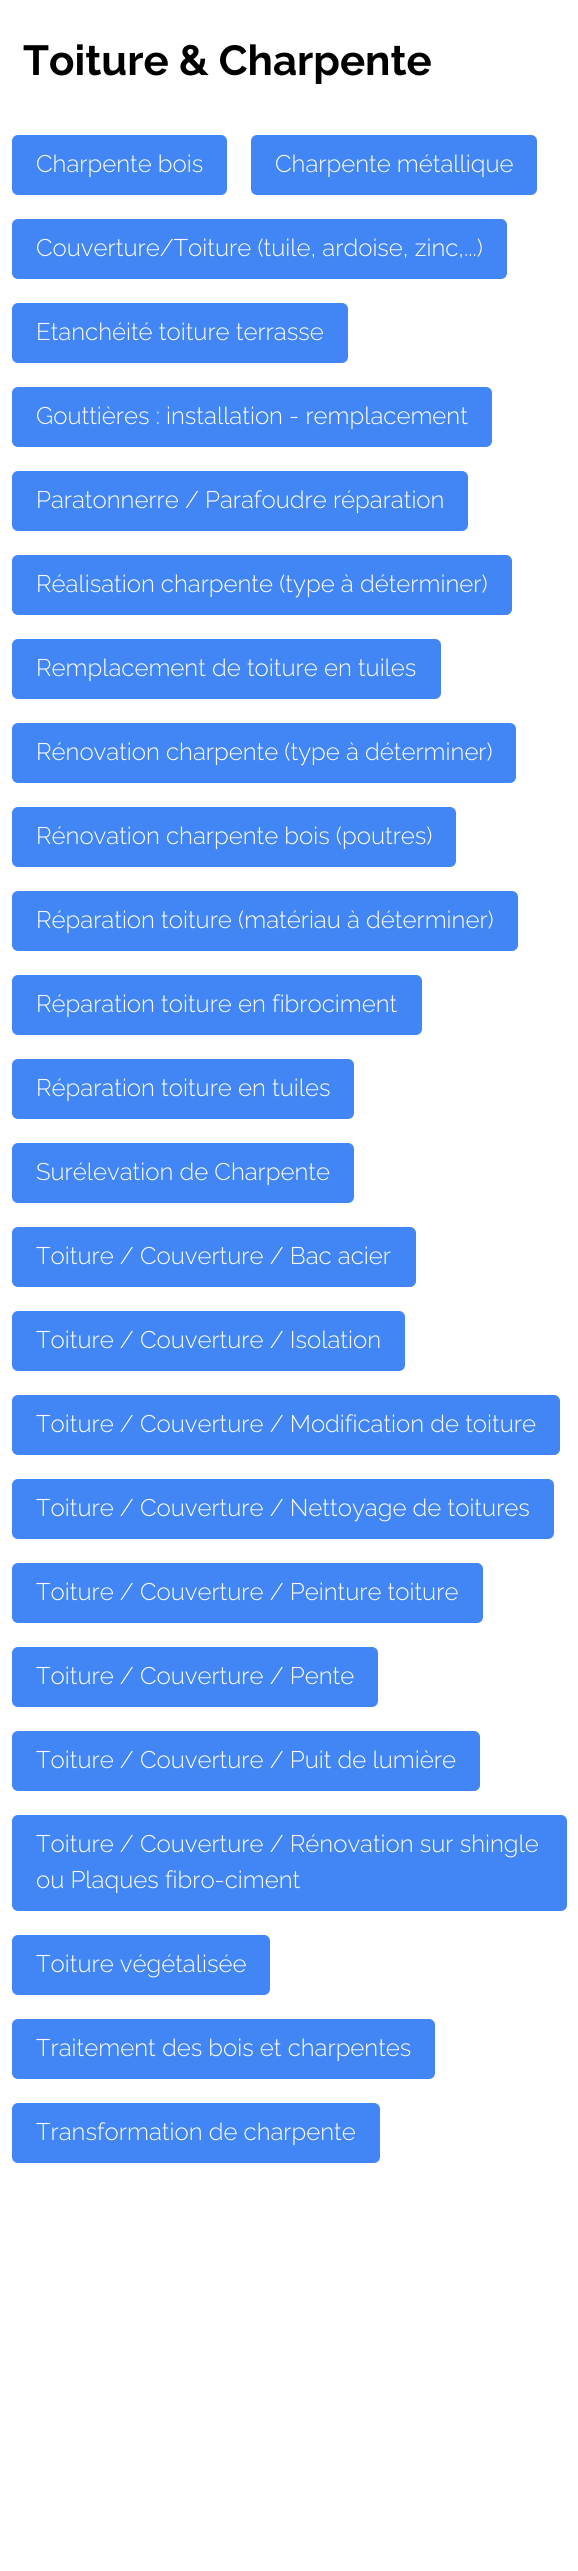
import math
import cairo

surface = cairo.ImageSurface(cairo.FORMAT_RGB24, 578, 2571)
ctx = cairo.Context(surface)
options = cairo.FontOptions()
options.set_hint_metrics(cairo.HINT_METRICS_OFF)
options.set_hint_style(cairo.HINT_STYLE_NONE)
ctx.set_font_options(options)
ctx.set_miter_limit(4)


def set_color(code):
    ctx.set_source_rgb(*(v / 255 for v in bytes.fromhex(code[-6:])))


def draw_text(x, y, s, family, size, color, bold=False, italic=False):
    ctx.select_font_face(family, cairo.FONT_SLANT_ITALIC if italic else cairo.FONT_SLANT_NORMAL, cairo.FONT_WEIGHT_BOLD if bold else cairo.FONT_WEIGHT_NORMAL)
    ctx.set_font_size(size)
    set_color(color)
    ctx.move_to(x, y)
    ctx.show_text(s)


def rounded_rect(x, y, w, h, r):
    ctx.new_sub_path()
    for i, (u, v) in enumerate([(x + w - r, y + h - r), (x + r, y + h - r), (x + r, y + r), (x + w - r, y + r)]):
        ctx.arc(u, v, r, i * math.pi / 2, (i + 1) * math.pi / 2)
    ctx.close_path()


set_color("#ffffff")
ctx.paint()
draw_text(23, 75, "Toiture & Charpente", "Raleway", 42, "#000000", bold=True)
set_color("#4285f4")
rounded_rect(12, 135, 215, 60, 6)
ctx.fill()
draw_text(36, 172, "Charpente bois", "Raleway Light", 24, "#ffffff")
set_color("#4285f4")
rounded_rect(251, 135, 286, 60, 6)
ctx.fill()
draw_text(275, 172, "Charpente métallique", "Raleway Light", 24, "#ffffff")
set_color("#4285f4")
rounded_rect(12, 219, 495, 60, 6)
ctx.fill()
draw_text(36, 256, "Couverture/Toiture (tuile, ardoise, zinc,...)", "Raleway Light", 24, "#ffffff")
set_color("#4285f4")
rounded_rect(12, 303, 336, 60, 6)
ctx.fill()
draw_text(36, 340, "Etanchéité toiture terrasse", "Raleway Light", 24, "#ffffff")
set_color("#4285f4")
rounded_rect(12, 387, 480, 60, 6)
ctx.fill()
draw_text(36, 424, "Gouttières : installation - remplacement", "Raleway Light", 24, "#ffffff")
set_color("#4285f4")
rounded_rect(12, 471, 456, 60, 6)
ctx.fill()
draw_text(36, 508, "Paratonnerre / Parafoudre réparation", "Raleway Light", 24, "#ffffff")
set_color("#4285f4")
rounded_rect(12, 555, 500, 60, 6)
ctx.fill()
draw_text(36, 592, "Réalisation charpente (type à déterminer)", "Raleway Light", 24, "#ffffff")
set_color("#4285f4")
rounded_rect(12, 639, 429, 60, 6)
ctx.fill()
draw_text(36, 676, "Remplacement de toiture en tuiles", "Raleway Light", 24, "#ffffff")
set_color("#4285f4")
rounded_rect(12, 723, 504, 60, 6)
ctx.fill()
draw_text(36, 760, "Rénovation charpente (type à déterminer)", "Raleway Light", 24, "#ffffff")
set_color("#4285f4")
rounded_rect(12, 807, 444, 60, 6)
ctx.fill()
draw_text(36, 844, "Rénovation charpente bois (poutres)", "Raleway Light", 24, "#ffffff")
set_color("#4285f4")
rounded_rect(12, 891, 506, 60, 6)
ctx.fill()
draw_text(36, 928, "Réparation toiture (matériau à déterminer)", "Raleway Light", 24, "#ffffff")
set_color("#4285f4")
rounded_rect(12, 975, 410, 60, 6)
ctx.fill()
draw_text(36, 1012, "Réparation toiture en fibrociment", "Raleway Light", 24, "#ffffff")
set_color("#4285f4")
rounded_rect(12, 1059, 342, 60, 6)
ctx.fill()
draw_text(36, 1096, "Réparation toiture en tuiles", "Raleway Light", 24, "#ffffff")
set_color("#4285f4")
rounded_rect(12, 1143, 342, 60, 6)
ctx.fill()
draw_text(36, 1180, "Surélevation de Charpente", "Raleway Light", 24, "#ffffff")
set_color("#4285f4")
rounded_rect(12, 1227, 404, 60, 6)
ctx.fill()
draw_text(36, 1264, "Toiture / Couverture / Bac acier", "Raleway Light", 24, "#ffffff")
set_color("#4285f4")
rounded_rect(12, 1311, 393, 60, 6)
ctx.fill()
draw_text(36, 1348, "Toiture / Couverture / Isolation", "Raleway Light", 24, "#ffffff")
set_color("#4285f4")
rounded_rect(12, 1395, 548, 60, 6)
ctx.fill()
draw_text(36, 1432, "Toiture / Couverture / Modification de toiture", "Raleway Light", 24, "#ffffff")
set_color("#4285f4")
rounded_rect(12, 1479, 542, 60, 6)
ctx.fill()
draw_text(36, 1516, "Toiture / Couverture / Nettoyage de toitures", "Raleway Light", 24, "#ffffff")
set_color("#4285f4")
rounded_rect(12, 1563, 471, 60, 6)
ctx.fill()
draw_text(36, 1600, "Toiture / Couverture / Peinture toiture", "Raleway Light", 24, "#ffffff")
set_color("#4285f4")
rounded_rect(12, 1647, 366, 60, 6)
ctx.fill()
draw_text(36, 1684, "Toiture / Couverture / Pente", "Raleway Light", 24, "#ffffff")
set_color("#4285f4")
rounded_rect(12, 1731, 468, 60, 6)
ctx.fill()
draw_text(36, 1768, "Toiture / Couverture / Puit de lumière", "Raleway Light", 24, "#ffffff")
set_color("#4285f4")
rounded_rect(12, 1815, 555, 96, 6)
ctx.fill()
draw_text(36, 1852, "Toiture / Couverture / Rénovation sur shingle", "Raleway Light", 24, "#ffffff")
draw_text(36, 1888, "ou Plaques fibro-ciment", "Raleway Light", 24, "#ffffff")
set_color("#4285f4")
rounded_rect(12, 1935, 258, 60, 6)
ctx.fill()
draw_text(36, 1972, "Toiture végétalisée", "Raleway Light", 24, "#ffffff")
set_color("#4285f4")
rounded_rect(12, 2019, 423, 60, 6)
ctx.fill()
draw_text(36, 2056, "Traitement des bois et charpentes", "Raleway Light", 24, "#ffffff")
set_color("#4285f4")
rounded_rect(12, 2103, 368, 60, 6)
ctx.fill()
draw_text(36, 2140, "Transformation de charpente", "Raleway Light", 24, "#ffffff")
surface.write_to_png("output.png")
